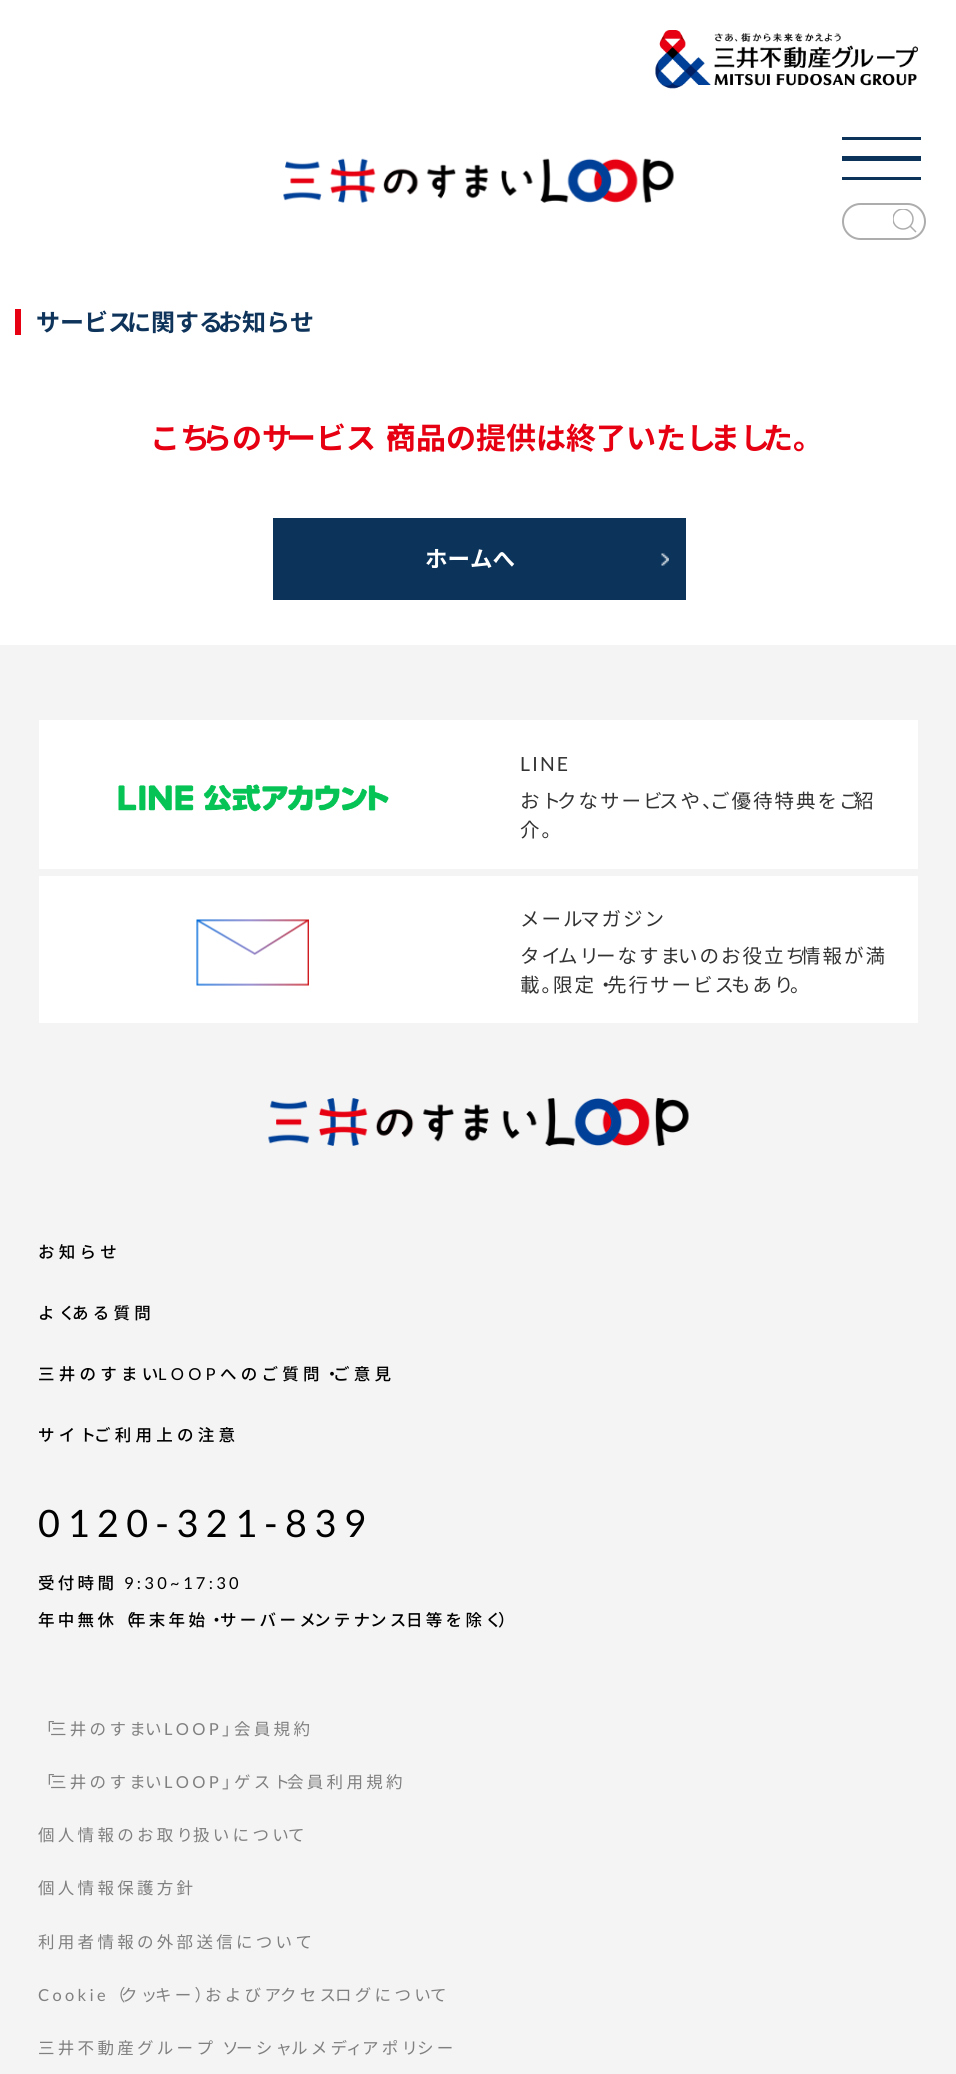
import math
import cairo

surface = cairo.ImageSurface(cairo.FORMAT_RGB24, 956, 2074)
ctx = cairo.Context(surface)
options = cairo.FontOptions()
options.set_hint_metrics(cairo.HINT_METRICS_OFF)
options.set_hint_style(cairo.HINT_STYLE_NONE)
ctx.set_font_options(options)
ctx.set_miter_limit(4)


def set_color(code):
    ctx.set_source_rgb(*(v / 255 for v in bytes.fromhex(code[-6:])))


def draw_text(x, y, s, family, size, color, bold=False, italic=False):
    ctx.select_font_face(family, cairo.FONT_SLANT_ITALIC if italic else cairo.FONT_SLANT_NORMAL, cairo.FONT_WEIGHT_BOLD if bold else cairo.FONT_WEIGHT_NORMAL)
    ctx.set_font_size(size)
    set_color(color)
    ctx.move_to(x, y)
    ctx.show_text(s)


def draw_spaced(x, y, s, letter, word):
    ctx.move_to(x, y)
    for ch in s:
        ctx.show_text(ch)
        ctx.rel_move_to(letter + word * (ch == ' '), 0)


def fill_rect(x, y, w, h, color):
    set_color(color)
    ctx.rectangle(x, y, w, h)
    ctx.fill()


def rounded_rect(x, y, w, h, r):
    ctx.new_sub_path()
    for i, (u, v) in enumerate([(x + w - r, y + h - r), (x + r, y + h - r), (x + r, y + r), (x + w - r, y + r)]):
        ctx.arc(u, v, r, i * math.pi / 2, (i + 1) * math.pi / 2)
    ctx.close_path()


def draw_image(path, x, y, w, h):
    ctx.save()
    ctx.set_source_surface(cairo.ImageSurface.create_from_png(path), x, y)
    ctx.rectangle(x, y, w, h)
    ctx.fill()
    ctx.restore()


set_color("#ffffff")
ctx.paint()
draw_image("assets/img1.png", 655, 30, 263, 59)
draw_image("assets/img2.png", 283, 158, 391, 45)
fill_rect(842, 137, 79, 3, "#0c345b")
fill_rect(842, 156, 79, 5, "#0c345b")
fill_rect(842, 177, 79, 3, "#0c345b")
rounded_rect(843, 204, 82, 35, 17.5)
set_color("#adadad")
ctx.stroke()
ctx.save()
ctx.rectangle(893, 209, 24, 24)
ctx.clip()
ctx.arc(903, 219, 10, 0, 2 * math.pi)
ctx.set_line_width(1.5)
ctx.stroke()
ctx.restore()
ctx.new_path()
ctx.move_to(910, 226)
ctx.line_to(916, 232)
ctx.set_line_width(1.5)
ctx.stroke()
fill_rect(15, 309, 6, 26, "#e60012")
draw_text(36, 331, "サービス", "Noto Sans JP", 24, "#0f345b", bold=True)
draw_text(127, 331, "に関する", "Noto Sans JP", 24, "#0f345b", bold=True)
draw_text(218, 331, "お知らせ", "Noto Sans JP", 24, "#0f345b", bold=True)
draw_text(150, 449, "こち", "Noto Sans JP", 30, "#e60012", bold=True)
draw_text(202, 449, "らのサ", "Noto Sans JP", 30, "#e60012", bold=True)
draw_text(286, 449, "ービス・", "Noto Sans JP", 30, "#e60012", bold=True)
draw_text(386, 449, "商品の提供は終了いたし", "Noto Sans JP", 30, "#e60012", bold=True)
draw_text(710, 449, "まし", "Noto Sans JP", 30, "#e60012", bold=True)
draw_text(763, 449, "た。", "Noto Sans JP", 30, "#e60012", bold=True)
fill_rect(273, 518, 413, 82, "#0c345b")
draw_text(425, 567, "ホームへ", "Noto Sans JP", 22.5, "#ffffff", bold=True)
draw_image("assets/img3.png", 661, 553, 8, 13)
fill_rect(0, 645, 956, 1429, "#f4f4f4")
fill_rect(39, 720, 879, 149, "#ffffff")
draw_image("assets/img4.png", 118, 784, 271, 28)
ctx.select_font_face("Lato")
ctx.set_font_size(19.5)
set_color("#333333")
draw_spaced(520, 771, "LINE", 2, 0)
ctx.select_font_face("Noto Sans JP")
draw_spaced(520, 808, "おト", 2, 0)
draw_spaced(557, 808, "クなサービ", 2, 0)
draw_spaced(659, 808, "スや、", 2, 0)
draw_spaced(710, 808, "ご優待特典をご", 2, 0)
draw_spaced(854, 808, "紹", 2, 0)
draw_spaced(520, 837, "介。", 2, 0)
fill_rect(39, 876, 879, 147, "#ffffff")
draw_image("assets/img5.png", 196, 919, 113, 67)
set_color("#333333")
draw_spaced(520, 926, "メール", 2, 0)
draw_spaced(580, 926, "マガジン", 2, 0)
draw_spaced(520, 963, "タイ", 2, 0)
draw_spaced(558, 963, "ムリ", 2, 0)
draw_spaced(596, 963, "ーなすま", 2, 0)
draw_spaced(678, 963, "いのお役立ち", 2, 0)
draw_spaced(801, 963, "情報が満", 2, 0)
draw_spaced(520, 992, "載。", 2, 0)
draw_spaced(553, 992, "限定・", 2, 0)
draw_spaced(607, 992, "先行サービス", 2, 0)
draw_spaced(731, 992, "もあり", 2, 0)
draw_spaced(790, 992, "。", 2, 0)
draw_image("assets/img6.png", 268, 1098, 421, 48)
ctx.select_font_face("Noto Sans JP Medium")
ctx.set_font_size(16.5)
set_color("#000000")
draw_spaced(38, 1258, "お知らせ", 4.25, 0)
draw_spaced(38, 1319, "よく", 4.25, 0)
draw_spaced(72, 1319, "ある質問", 4.25, 0)
draw_spaced(38, 1380, "三井のすまい", 4.25, 0)
ctx.select_font_face("Lato")
draw_spaced(158, 1380, "LOOP", 4.25, 0)
ctx.select_font_face("Noto Sans JP Medium")
draw_spaced(220, 1380, "へのご質問・", 4.25, 0)
draw_spaced(333, 1380, "ご意見", 4.25, 0)
draw_spaced(38, 1441, "サイト", 4.25, 0)
draw_spaced(94, 1441, "ご利用上の注意", 4.25, 0)
ctx.select_font_face("Lato")
ctx.set_font_size(37.75)
draw_spaced(38, 1537, "0120-321-839", 7.5, 0)
ctx.select_font_face("Noto Sans JP Medium")
ctx.set_font_size(16.5)
draw_spaced(38, 1589, "受付時間", 3.3, 0)
ctx.select_font_face("Lato")
draw_spaced(124, 1589, "9:30~17:30", 3.3, 0)
ctx.select_font_face("Noto Sans JP Medium")
draw_spaced(38, 1626, "年中無休（", 3.3, 0)
draw_spaced(129, 1626, "年末年始・", 3.3, 0)
draw_spaced(220, 1626, "サーバーメ", 3.3, 0)
draw_spaced(314, 1626, "ンテナ", 3.3, 0)
draw_spaced(370, 1626, "ンス", 3.3, 0)
draw_spaced(406, 1626, "日等を除く", 3.3, 0)
draw_spaced(498, 1626, "）", 3.3, 0)
ctx.select_font_face("Noto Sans JP")
set_color("#808080")
draw_spaced(38, 1735, "「", 3.3, 0)
draw_spaced(50, 1735, "三井のすま", 3.3, 0)
draw_spaced(145, 1735, "い", 3.3, 0)
ctx.select_font_face("Lato")
draw_spaced(164, 1735, "LOOP", 3.3, 0)
ctx.select_font_face("Noto Sans JP")
draw_spaced(222, 1735, "」", 3.3, 0)
draw_spaced(234, 1735, "会員規約", 3.3, 0)
draw_spaced(38, 1788, "「", 3.3, 0)
draw_spaced(50, 1788, "三井のすま", 3.3, 0)
draw_spaced(145, 1788, "い", 3.3, 0)
ctx.select_font_face("Lato")
draw_spaced(164, 1788, "LOOP", 3.3, 0)
ctx.select_font_face("Noto Sans JP")
draw_spaced(222, 1788, "」", 3.3, 0)
draw_spaced(234, 1788, "ゲスト", 3.3, 0)
draw_spaced(287, 1788, "会員利用規約", 3.3, 0)
draw_spaced(38, 1841, "個人情報のお取り", 3.3, 0)
draw_spaced(193, 1841, "扱いについ", 3.3, 0)
draw_spaced(288, 1841, "て", 3.3, 0)
draw_spaced(38, 1894, "個人情報保護方針", 3.3, 0)
draw_spaced(38, 1948, "利用者情報の外部送信について", 3.3, 0)
ctx.select_font_face("Lato")
draw_spaced(38, 2001, "Cookie", 3.3, 0)
ctx.select_font_face("Noto Sans JP")
draw_spaced(109, 2001, "（", 3.3, 0)
draw_spaced(121, 2001, "クッ", 3.3, 0)
draw_spaced(155, 2001, "キー）", 3.3, 0)
draw_spaced(205, 2001, "およびア", 3.3, 0)
draw_spaced(280, 2001, "クセス", 3.3, 0)
draw_spaced(335, 2001, "ログについ", 3.3, 0)
draw_spaced(430, 2001, "て", 3.3, 0)
draw_spaced(38, 2054, "三井不動産グループ ソ", 3.3, -1)
draw_spaced(236, 2054, "ーシャ", 3.3, -1)
draw_spaced(291, 2054, "ルメデ", 3.3, -1)
draw_spaced(346, 2054, "ィ", 3.3, -1)
draw_spaced(362, 2054, "アポリ", 3.3, -1)
draw_spaced(417, 2054, "シー", 3.3, -1)
surface.write_to_png("output.png")
